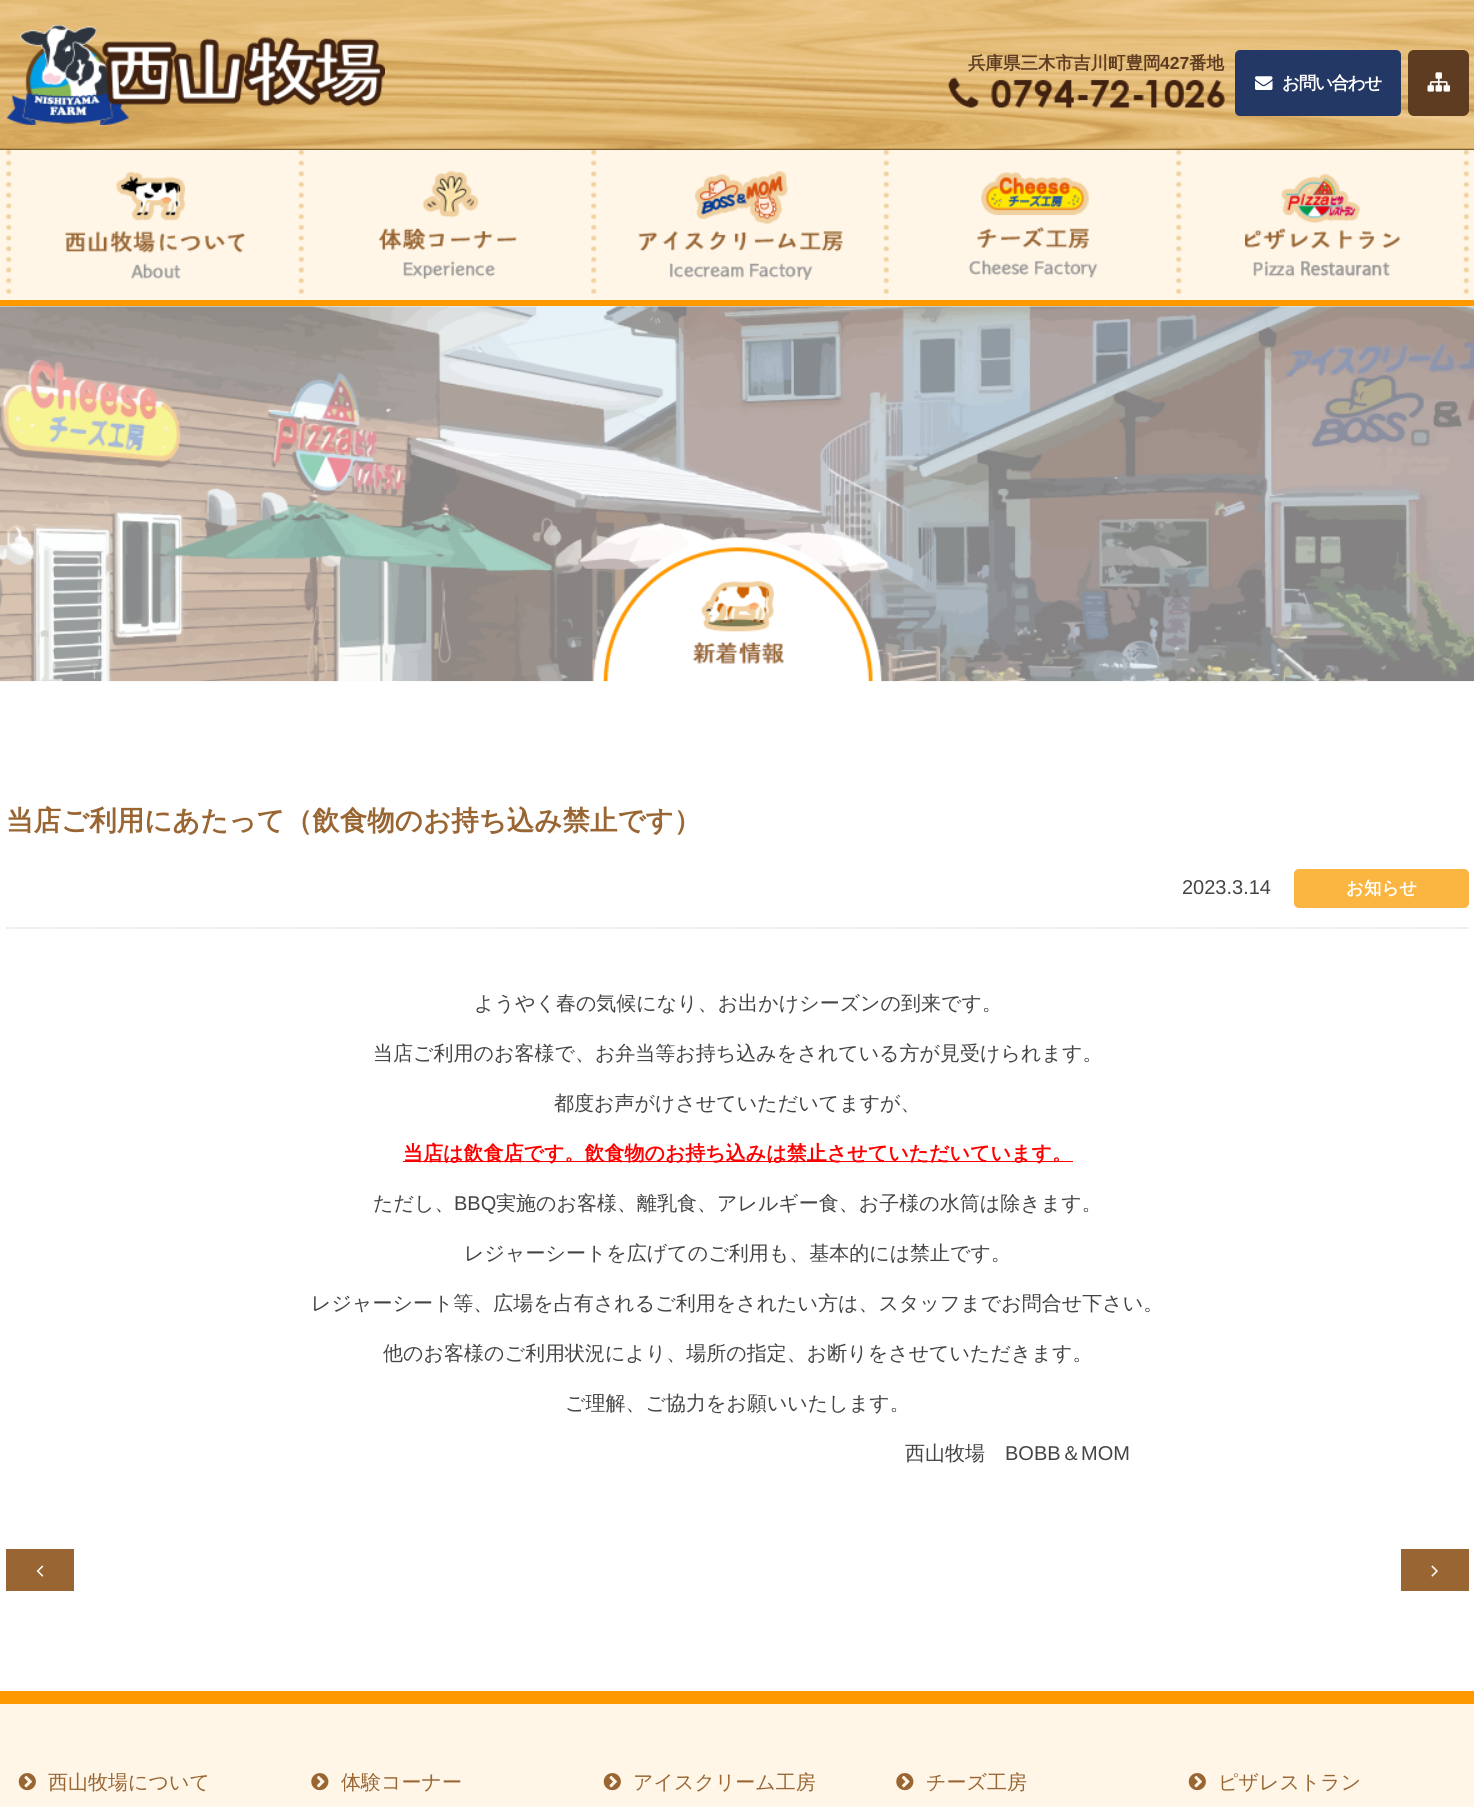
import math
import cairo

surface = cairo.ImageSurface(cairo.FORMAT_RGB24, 1474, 1807)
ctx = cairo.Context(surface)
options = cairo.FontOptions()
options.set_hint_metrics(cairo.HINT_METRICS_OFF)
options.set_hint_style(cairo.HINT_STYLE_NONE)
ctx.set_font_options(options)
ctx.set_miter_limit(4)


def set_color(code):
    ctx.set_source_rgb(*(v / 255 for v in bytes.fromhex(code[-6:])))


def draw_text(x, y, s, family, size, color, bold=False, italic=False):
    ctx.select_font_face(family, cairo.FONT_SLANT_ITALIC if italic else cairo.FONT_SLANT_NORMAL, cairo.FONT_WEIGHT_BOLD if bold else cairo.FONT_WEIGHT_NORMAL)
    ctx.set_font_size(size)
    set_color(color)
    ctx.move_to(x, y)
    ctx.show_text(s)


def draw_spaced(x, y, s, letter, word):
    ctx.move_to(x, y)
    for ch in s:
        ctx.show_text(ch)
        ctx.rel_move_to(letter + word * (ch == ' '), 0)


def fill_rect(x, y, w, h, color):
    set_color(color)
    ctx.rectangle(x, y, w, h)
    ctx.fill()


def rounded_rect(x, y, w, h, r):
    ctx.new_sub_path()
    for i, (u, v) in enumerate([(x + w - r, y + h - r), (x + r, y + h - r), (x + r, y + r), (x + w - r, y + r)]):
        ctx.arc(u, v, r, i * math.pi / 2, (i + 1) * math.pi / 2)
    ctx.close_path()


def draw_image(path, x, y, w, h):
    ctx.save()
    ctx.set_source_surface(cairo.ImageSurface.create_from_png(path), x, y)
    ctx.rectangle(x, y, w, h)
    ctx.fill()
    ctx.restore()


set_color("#ffffff")
ctx.paint()
draw_image("assets/img1.png", 0, 0, 1474, 150)
draw_image("assets/img2.png", 6, 25, 379, 100)
draw_text(968, 69, "兵庫県三木市吉川町豊岡", "WenQuanYi Zen Hei", 17.5, "#5d3c22", bold=True)
draw_text(1160, 69, "427", "Liberation Sans", 17.5, "#5d3c22", bold=True)
draw_text(1189, 69, "番地", "WenQuanYi Zen Hei", 17.5, "#5d3c22", bold=True)
draw_image("assets/img3.png", 948, 77, 277, 31)
set_color("#243865")
rounded_rect(1235, 50, 166, 66, 5)
ctx.fill()
draw_image("assets/img4.png", 1255, 76, 18, 14)
set_color("#ffffff")
draw_spaced(1282, 89, "お問い合わせ", -1.25, 0)
set_color("#5d3c22")
rounded_rect(1408, 50, 61, 66, 6)
ctx.fill()
draw_image("assets/img5.png", 1427, 72, 23, 20)
fill_rect(0, 150, 1474, 150, "#fff6e8")
fill_rect(0, 300, 1474, 6, "#ff9900")
draw_image("assets/img6.png", 6, 150, 6, 150)
draw_image("assets/img7.png", 65, 171, 180, 108)
draw_image("assets/img8.png", 298, 150, 6, 150)
draw_image("assets/img9.png", 378, 171, 139, 108)
draw_image("assets/img6.png", 591, 150, 6, 150)
draw_image("assets/img10.png", 638, 171, 205, 109)
draw_image("assets/img11.png", 883, 150, 6, 150)
draw_image("assets/img12.png", 968, 172, 130, 106)
draw_image("assets/img6.png", 1176, 150, 6, 150)
draw_image("assets/img13.png", 1245, 173, 155, 104)
draw_image("assets/img11.png", 1463, 150, 6, 150)
draw_image("assets/img14.png", 0, 306, 1474, 376)
draw_text(6, 830, "当店ご利用にあたって（飲食物のお持ち込み禁止です）", "WenQuanYi Zen Hei", 27.5, "#996633", bold=True)
ctx.new_path()
ctx.move_to(6, 928)
ctx.line_to(1469, 928)
set_color("#cccccc")
ctx.set_line_width(1.2)
ctx.set_dash([1.25, 1.25])
ctx.stroke()
draw_text(1182, 894, "2023.3.14", "Liberation Sans", 20, "#444444")
set_color("#fbb541")
rounded_rect(1294, 869, 175, 39, 5)
ctx.fill()
draw_text(1346, 894, "お知らせ", "WenQuanYi Zen Hei", 17.5, "#ffffff", bold=True)
draw_text(474, 1010, "ようやく春の気候になり、お出かけシーズンの到来です。", "WenQuanYi Zen Hei Medium", 20, "#444444")
draw_text(373, 1060, "当店ご利用のお客様で、お弁当等お持ち込みをされている方が見受けられます。", "WenQuanYi Zen Hei Medium", 20, "#444444")
draw_text(554, 1110, "都度お声がけさせていただいてますが、", "WenQuanYi Zen Hei Medium", 20, "#444444")
fill_rect(403, 1161, 670, 1, "#ff0000")
draw_text(403, 1160, "当店は飲食店です。飲食物のお持ち込みは禁止させていただいています。", "WenQuanYi Zen Hei", 20, "#ff0000", bold=True)
draw_text(373, 1210, "ただし、", "WenQuanYi Zen Hei Medium", 20, "#444444")
draw_text(454, 1210, "BBQ", "Liberation Sans", 20, "#444444")
draw_text(496, 1210, "実施のお客様、離乳食、アレルギー食、お子様の水筒は除きます。", "WenQuanYi Zen Hei Medium", 20, "#444444")
draw_text(464, 1260, "レジャーシートを広げてのご利用も、基本的には禁止です。", "WenQuanYi Zen Hei Medium", 20, "#444444")
draw_text(311, 1310, "レジャーシート等、広場を占有されるご利用をされたい方は、スタッフまでお問合せ下さい。", "WenQuanYi Zen Hei Medium", 20, "#444444")
draw_text(383, 1360, "他のお客様のご利用状況により、場所の指定、お断りをさせていただきます。", "WenQuanYi Zen Hei Medium", 20, "#444444")
draw_text(565, 1410, "ご理解、ご協力をお願いいたします。", "WenQuanYi Zen Hei Medium", 20, "#444444")
draw_text(905, 1460, "西山牧場", "WenQuanYi Zen Hei Medium", 20, "#444444")
draw_text(1005, 1460, "BOBB", "Liberation Sans", 20, "#444444")
draw_text(1061, 1460, "＆", "WenQuanYi Zen Hei Medium", 20, "#444444")
draw_text(1081, 1460, "MOM", "Liberation Sans", 20, "#444444")
fill_rect(6, 1549, 68, 42, "#996633")
draw_image("assets/img15.png", 36, 1565, 8, 12)
fill_rect(1401, 1549, 68, 42, "#996633")
draw_image("assets/img16.png", 1431, 1565, 7, 12)
fill_rect(0, 1704, 1474, 103, "#fff6e8")
fill_rect(0, 1691, 1474, 13, "#ff9900")
draw_image("assets/img17.png", 18, 1773, 18, 18)
draw_text(48, 1789, "西山牧場について", "WenQuanYi Zen Hei Medium", 20, "#996633")
draw_image("assets/img18.png", 311, 1773, 18, 18)
draw_text(341, 1789, "体験コーナー", "WenQuanYi Zen Hei Medium", 20, "#996633")
draw_image("assets/img17.png", 603, 1773, 18, 18)
draw_text(633, 1789, "アイスクリーム工房", "WenQuanYi Zen Hei Medium", 20, "#996633")
draw_image("assets/img18.png", 896, 1773, 18, 18)
draw_text(926, 1789, "チーズ工房", "WenQuanYi Zen Hei Medium", 20, "#996633")
draw_image("assets/img17.png", 1188, 1773, 18, 18)
draw_text(1218, 1789, "ピザレストラン", "WenQuanYi Zen Hei Medium", 20, "#996633")
surface.write_to_png("output.png")
